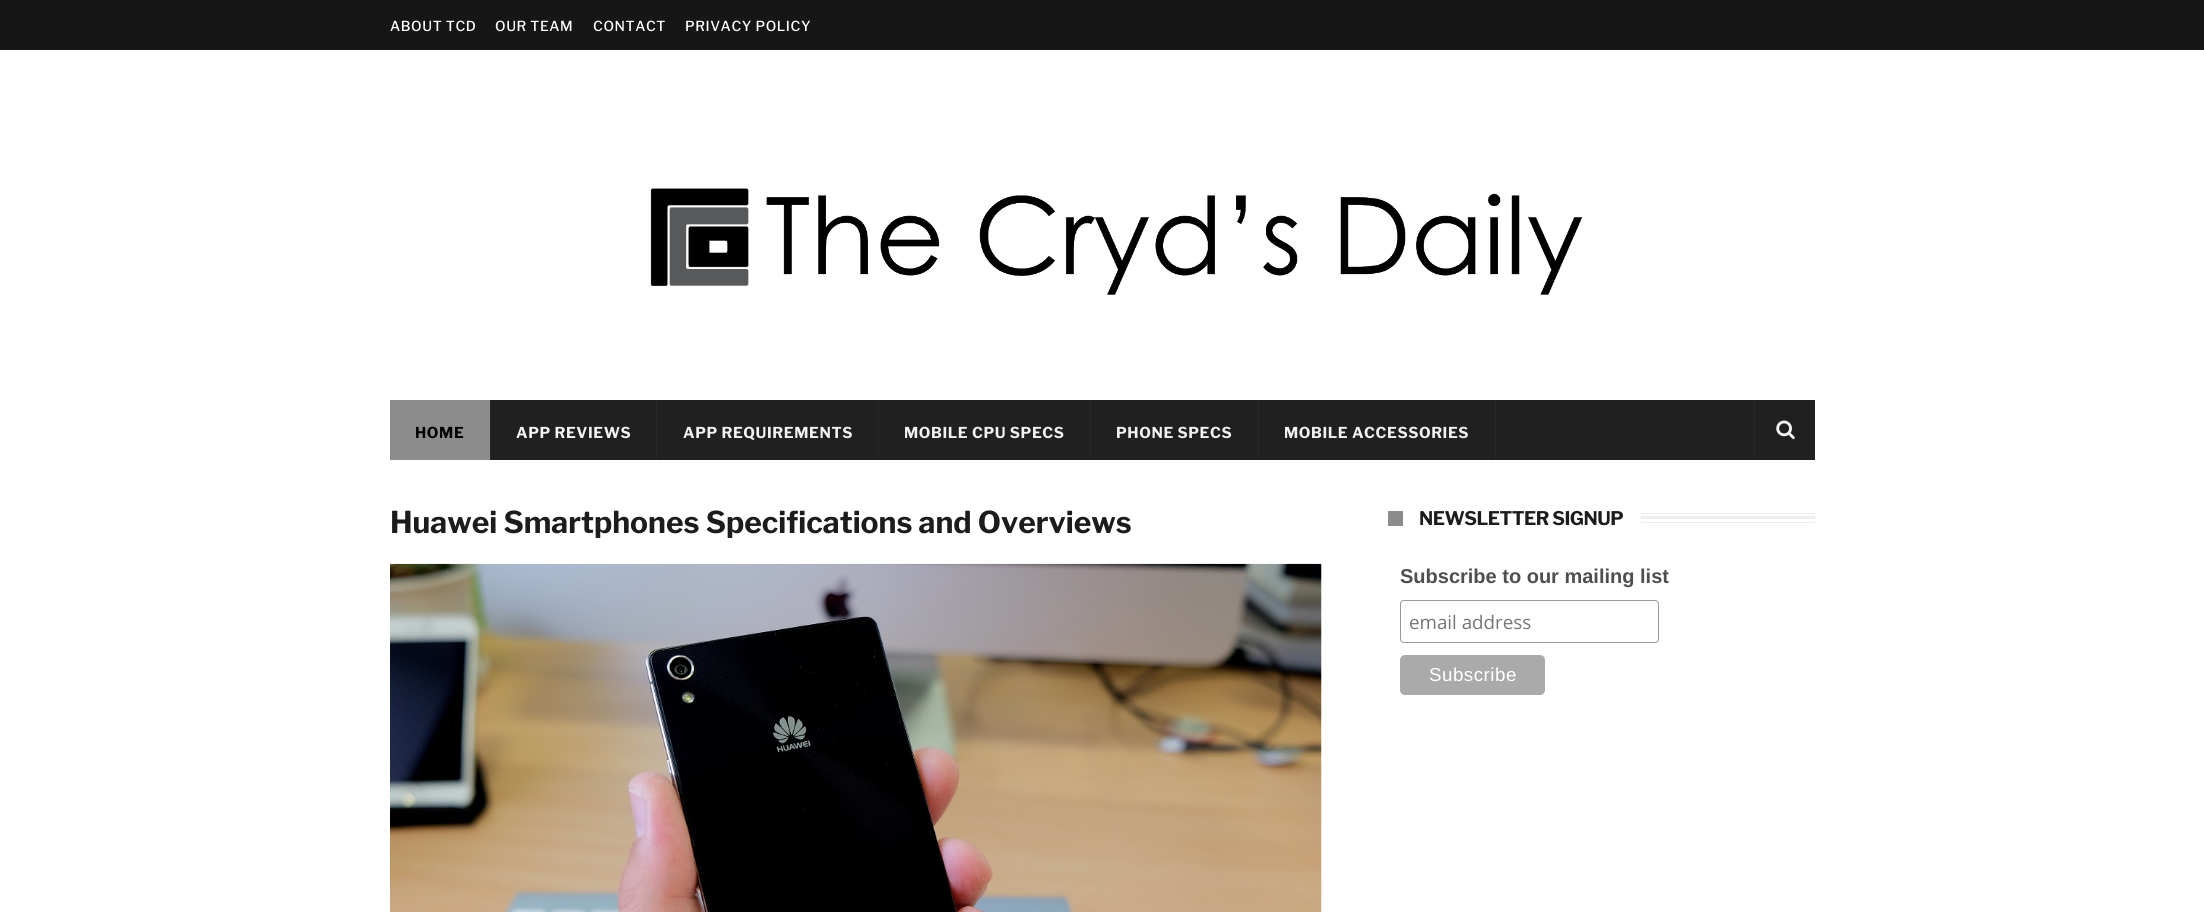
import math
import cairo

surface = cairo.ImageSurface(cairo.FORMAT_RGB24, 2204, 912)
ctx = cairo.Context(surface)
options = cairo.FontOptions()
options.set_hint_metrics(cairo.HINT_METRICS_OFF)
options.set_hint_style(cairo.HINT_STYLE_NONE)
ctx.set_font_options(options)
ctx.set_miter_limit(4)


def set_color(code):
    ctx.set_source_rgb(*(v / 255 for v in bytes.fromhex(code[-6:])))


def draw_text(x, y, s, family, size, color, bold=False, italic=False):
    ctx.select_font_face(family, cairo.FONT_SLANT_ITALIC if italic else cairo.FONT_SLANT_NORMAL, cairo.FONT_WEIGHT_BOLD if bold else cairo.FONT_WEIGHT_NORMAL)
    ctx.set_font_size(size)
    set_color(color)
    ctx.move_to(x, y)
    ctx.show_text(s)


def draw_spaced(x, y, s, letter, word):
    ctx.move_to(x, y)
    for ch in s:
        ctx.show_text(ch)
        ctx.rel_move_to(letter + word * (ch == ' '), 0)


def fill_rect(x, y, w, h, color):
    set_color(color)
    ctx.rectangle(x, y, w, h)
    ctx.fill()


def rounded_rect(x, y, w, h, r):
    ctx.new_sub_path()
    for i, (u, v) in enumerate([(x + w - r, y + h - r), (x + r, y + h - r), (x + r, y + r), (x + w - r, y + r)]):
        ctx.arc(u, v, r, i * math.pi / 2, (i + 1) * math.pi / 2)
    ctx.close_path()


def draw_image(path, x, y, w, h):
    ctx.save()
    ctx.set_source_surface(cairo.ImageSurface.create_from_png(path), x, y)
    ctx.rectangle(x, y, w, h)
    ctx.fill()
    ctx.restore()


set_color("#ffffff")
ctx.paint()
fill_rect(0, 0, 2204, 50, "#171616")
ctx.select_font_face("Libre Franklin Medium")
ctx.set_font_size(13.75)
set_color("#ffffff")
draw_spaced(390, 31, "ABOUT TCD", 0.6, 0)
draw_spaced(495, 31, "OUR TEAM", 0.6, 0)
draw_spaced(593, 31, "CONTACT", 0.6, 0)
draw_spaced(685, 31, "PRIVACY POLICY", 0.6, 0)
draw_image("assets/img1.png", 650, 188, 933, 107)
fill_rect(491, 400, 1324, 60, "#202020")
fill_rect(390, 400, 100, 60, "#8c8c8c")
fill_rect(490, 400, 1, 60, "#272727")
ctx.select_font_face("Libre Franklin", cairo.FONT_SLANT_NORMAL, cairo.FONT_WEIGHT_BOLD)
ctx.set_font_size(15)
set_color("#000000")
draw_spaced(415, 438, "HOME", 0.6, 0)
fill_rect(656, 400, 1, 60, "#272727")
set_color("#f2f2f2")
draw_spaced(516, 438, "APP REVIEWS", 0.6, 0)
fill_rect(878, 400, 1, 60, "#272727")
set_color("#f2f2f2")
draw_spaced(683, 438, "APP REQUIREMENTS", 0.6, 0)
fill_rect(1090, 400, 1, 60, "#272727")
set_color("#f2f2f2")
draw_spaced(904, 438, "MOBILE CPU SPECS", 0.6, 0)
fill_rect(1258, 400, 1, 60, "#272727")
set_color("#f2f2f2")
draw_spaced(1116, 438, "PHONE SPECS", 0.6, 0)
fill_rect(1495, 400, 1, 60, "#272727")
set_color("#f2f2f2")
draw_spaced(1284, 438, "MOBILE ACCESSORIES", 0.6, 0)
fill_rect(1754, 400, 1, 60, "#272727")
draw_image("assets/img2.png", 1776, 420, 19, 20)
draw_text(390, 533, "Huawei Smartphones Specifications and Overviews", "Libre Franklin", 30, "#1c1c1c", bold=True)
draw_image("assets/img3.png", 390, 563, 932, 349)
ctx.save()
ctx.rectangle(1388, 498, 427, 222)
ctx.clip()
ctx.rectangle(1388.5, 513.5, 436, 9)
set_color("#eeeeee")
ctx.set_line_width(1)
ctx.stroke()
ctx.restore()
fill_rect(1388, 513, 253, 10, "#ffffff")
fill_rect(1388, 511, 15, 15, "#8c8c8c")
ctx.set_font_size(18.75)
set_color("#1c1c1c")
draw_spaced(1419, 525, "NEWSLETTER SIGNUP", -0.5, 0)
fill_rect(1641, 516, 174, 3, "#eeeeee")
draw_text(1400, 583, "Subscribe to our mailing list", "Liberation Sans", 20, "#4f4f4f", bold=True)
rounded_rect(1400.5, 600.5, 258, 42, 3.5)
set_color("#999999")
ctx.set_line_width(1)
ctx.stroke()
draw_text(1409, 629, "email address", "Open Sans", 18.75, "#757575")
set_color("#aaaaaa")
rounded_rect(1400, 655, 145, 40, 5)
ctx.fill()
ctx.select_font_face("Liberation Sans")
set_color("#ffffff")
draw_spaced(1429, 681, "Subscribe", 0.5, 0)
surface.write_to_png("output.png")
